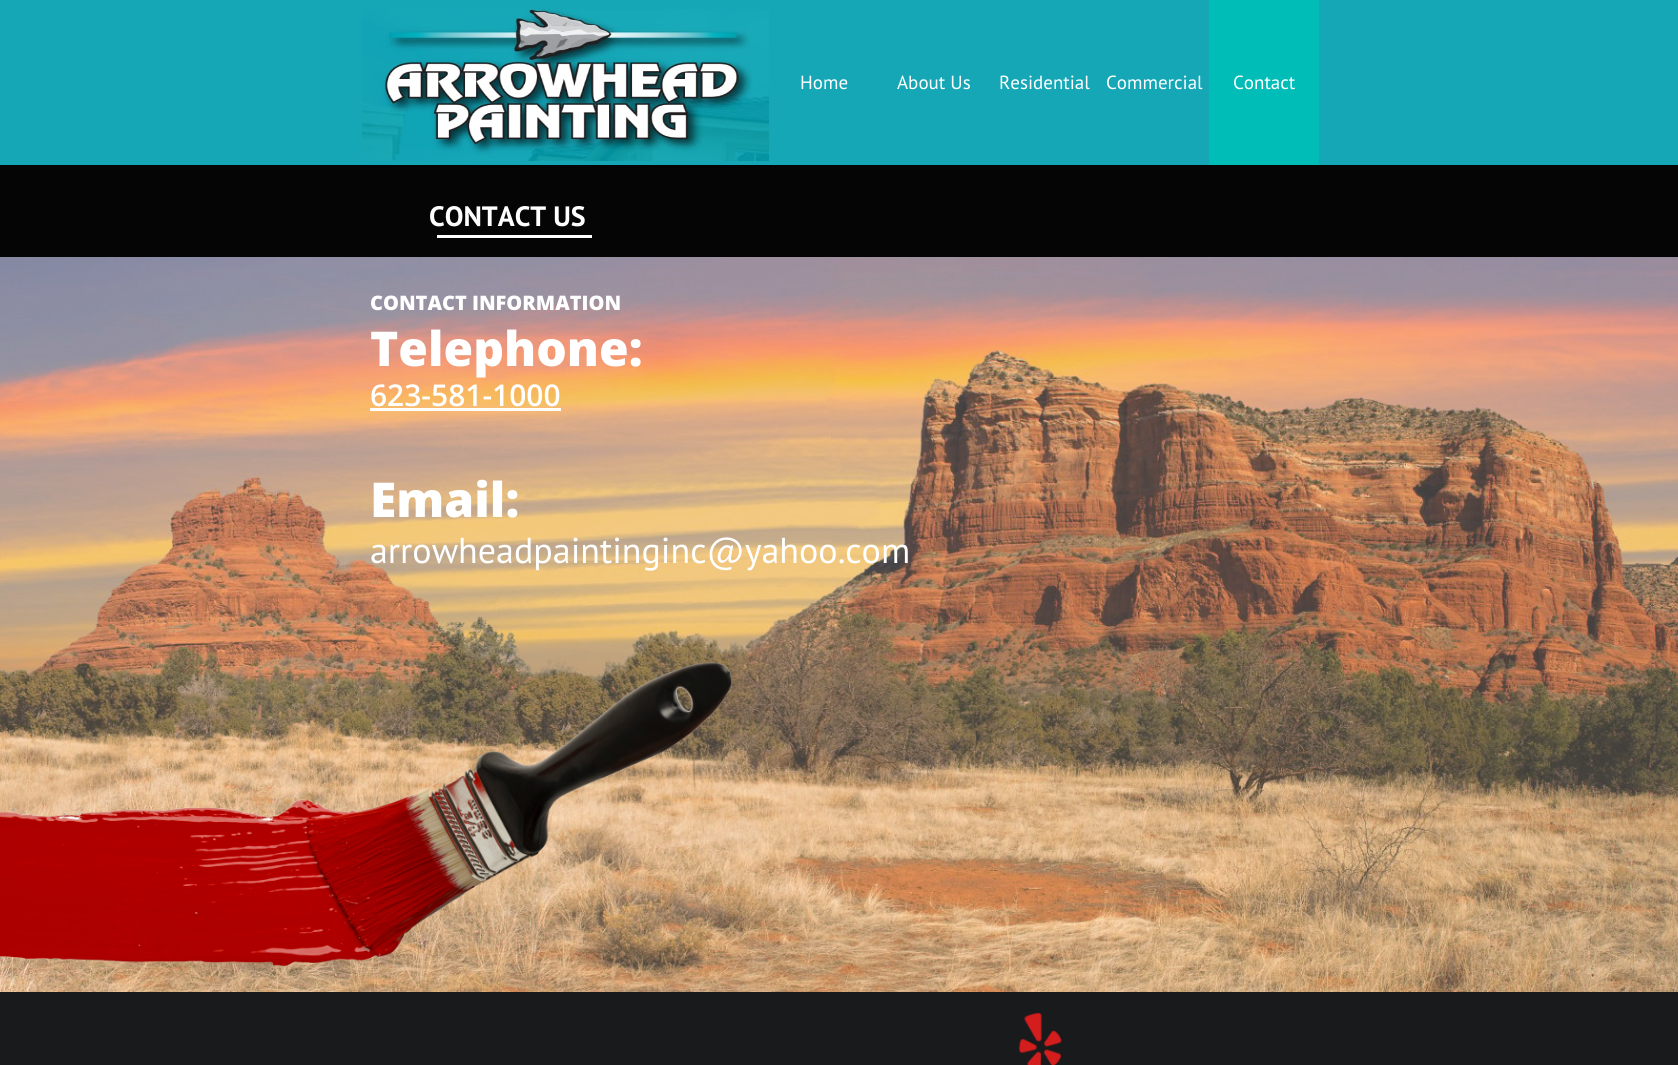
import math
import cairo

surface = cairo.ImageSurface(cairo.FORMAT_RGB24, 1678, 1065)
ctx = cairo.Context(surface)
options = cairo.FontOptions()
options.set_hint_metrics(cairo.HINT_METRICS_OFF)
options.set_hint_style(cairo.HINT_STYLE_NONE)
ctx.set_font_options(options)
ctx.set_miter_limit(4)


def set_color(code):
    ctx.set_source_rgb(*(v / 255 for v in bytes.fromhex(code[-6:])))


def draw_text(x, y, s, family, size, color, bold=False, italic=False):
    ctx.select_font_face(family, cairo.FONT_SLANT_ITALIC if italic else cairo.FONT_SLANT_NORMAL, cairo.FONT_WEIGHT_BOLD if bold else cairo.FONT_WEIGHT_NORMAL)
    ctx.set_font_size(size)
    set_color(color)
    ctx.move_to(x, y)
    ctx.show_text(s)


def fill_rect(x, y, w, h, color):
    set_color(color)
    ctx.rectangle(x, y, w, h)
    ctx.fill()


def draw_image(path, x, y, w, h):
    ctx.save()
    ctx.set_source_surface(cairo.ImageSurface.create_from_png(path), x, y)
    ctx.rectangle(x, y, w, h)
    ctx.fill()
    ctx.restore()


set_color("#16a7b7")
ctx.paint()
draw_image("assets/img1.png", 362, 9, 407, 152)
draw_text(800, 89, "Home", "PT Sans", 19, "#ffffff")
draw_text(897, 89, "About Us", "PT Sans", 19, "#ffffff")
draw_text(999, 89, "Residential", "PT Sans", 19, "#ffffff")
draw_text(1106, 89, "Commercial", "PT Sans", 19, "#ffffff")
fill_rect(1209, 0, 110, 165, "#00bdb8")
draw_text(1233, 89, "Contact", "PT Sans", 19, "#ffffff")
fill_rect(0, 165, 1678, 92, "#050506")
draw_text(429, 226, "CONTACT US", "PT Sans", 28, "#ffffff", bold=True)
fill_rect(437, 235, 155, 3, "#ffffff")
draw_image("assets/img2.png", 0, 257, 1678, 735)
draw_text(370, 310, "CONTACT INFORMATION", "Open Sans ExtraBold", 20, "#ffffff")
draw_text(370, 366, "Telephone:", "Open Sans ExtraBold", 48, "#ffffff")
draw_text(370, 406, "623-581-1000", "Open Sans SemiBold", 30, "#ffffff")
fill_rect(370, 408, 191, 3, "#ffffff")
draw_text(370, 517, "Email:", "Open Sans ExtraBold", 48, "#ffffff")
draw_text(370, 563, "arrowheadpaintinginc@yahoo.com", "PT Sans", 36, "#ffffff")
draw_image("assets/img3.png", 0, 662, 733, 305)
fill_rect(0, 992, 1678, 73, "#191a1c")
draw_image("assets/img4.png", 1018, 1012, 44, 53)
surface.write_to_png("output.png")
